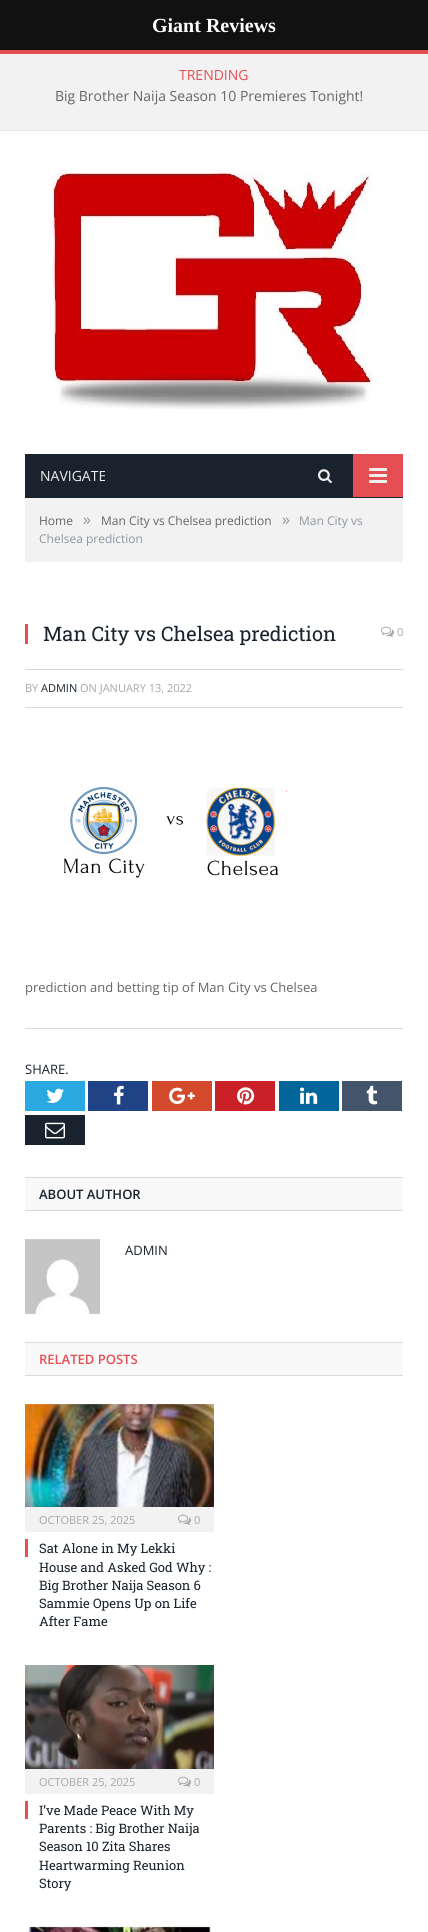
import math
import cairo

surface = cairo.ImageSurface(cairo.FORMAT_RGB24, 428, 1932)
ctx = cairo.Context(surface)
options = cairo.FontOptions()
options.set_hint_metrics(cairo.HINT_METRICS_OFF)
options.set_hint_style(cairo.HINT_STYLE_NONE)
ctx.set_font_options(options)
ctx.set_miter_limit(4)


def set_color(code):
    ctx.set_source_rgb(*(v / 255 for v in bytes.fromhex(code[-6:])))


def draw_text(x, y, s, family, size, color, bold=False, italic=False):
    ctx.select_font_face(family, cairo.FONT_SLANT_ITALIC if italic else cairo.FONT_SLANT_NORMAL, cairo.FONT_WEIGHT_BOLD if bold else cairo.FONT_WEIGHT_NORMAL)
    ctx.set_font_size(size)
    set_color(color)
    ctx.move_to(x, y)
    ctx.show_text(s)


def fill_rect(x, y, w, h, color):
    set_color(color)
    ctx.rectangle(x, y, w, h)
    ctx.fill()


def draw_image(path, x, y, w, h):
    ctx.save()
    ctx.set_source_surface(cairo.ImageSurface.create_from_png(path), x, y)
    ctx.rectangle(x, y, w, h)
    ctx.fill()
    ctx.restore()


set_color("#ffffff")
ctx.paint()
fill_rect(0, 0, 428, 50, "#111111")
draw_text(152, 32, "Giant Reviews", "Liberation Serif", 20, "#ffffff", bold=True)
fill_rect(0, 54, 428, 76, "#f2f2f2")
fill_rect(0, 50, 428, 4, "#e54e53")
fill_rect(0, 130, 428, 1, "#e7e7e7")
draw_text(179, 80, "TRENDING", "Open Sans", 14, "#e54e53")
draw_text(55, 101, "Big Brother Naija Season 10 Premieres Tonight!", "Open Sans", 14, "#656565")
draw_image("assets/img1.png", 52, 173, 321, 236)
fill_rect(25, 454, 378, 44, "#19232d")
draw_text(40, 481, "NAVIGATE", "Open Sans", 14, "#efefef")
draw_image("assets/img2.png", 318, 469, 14, 15)
fill_rect(353, 454, 50, 43, "#e54e53")
draw_image("assets/img3.png", 369, 468, 18, 15)
fill_rect(25, 498, 378, 64, "#f2f2f2")
draw_text(39, 525, "Home", "Open Sans", 12, "#656565")
draw_text(83, 525, "»", "Open Sans", 16, "#8d97a1")
draw_text(101, 525, "Man City vs Chelsea prediction", "Open Sans", 12, "#656565")
draw_text(282, 525, "»", "Open Sans", 16, "#8d97a1")
draw_text(299, 525, "Man City vs", "Open Sans", 12, "#8d97a1")
draw_text(39, 543, "Chelsea prediction", "Open Sans", 12, "#8d97a1")
fill_rect(25, 624, 3, 20, "#e54e53")
draw_text(43, 641, "Man City vs Chelsea prediction", "Roboto Slab", 20, "#19232d")
draw_image("assets/img4.png", 381, 626, 13, 11)
draw_text(397, 636, "0", "Open Sans", 11, "#a6a6a6")
fill_rect(25, 669, 378, 1, "#d9d9d9")
fill_rect(25, 707, 378, 1, "#d9d9d9")
draw_text(25, 692, "BY", "Open Sans", 11, "#a6a6a6")
draw_text(41, 692, "ADMIN", "Open Sans", 11, "#19232d")
draw_text(80, 692, "ON JANUARY 13, 2022", "Open Sans", 11, "#a6a6a6")
draw_image("assets/img5.png", 63, 786, 224, 92)
draw_text(25, 992, "prediction and betting tip of Man City vs Chelsea", "Open Sans", 13, "#656565")
fill_rect(25, 1028, 378, 1, "#d9d9d9")
draw_text(25, 1074, "SHARE.", "Open Sans", 13, "#19232d")
fill_rect(25, 1081, 60, 30, "#2aa9e0")
draw_image("assets/img6.png", 46, 1088, 18, 15)
fill_rect(88, 1081, 60, 30, "#204385")
draw_image("assets/img7.png", 114, 1085, 10, 20)
fill_rect(152, 1081, 60, 30, "#d3492c")
draw_image("assets/img8.png", 169, 1087, 26, 17)
fill_rect(215, 1081, 60, 30, "#ca2128")
draw_image("assets/img9.png", 237, 1087, 18, 18)
fill_rect(279, 1081, 60, 30, "#02669a")
draw_image("assets/img10.png", 300, 1087, 18, 17)
fill_rect(342, 1081, 60, 30, "#44546b")
draw_image("assets/img11.png", 366, 1085, 12, 20)
fill_rect(25, 1115, 60, 30, "#19232d")
draw_image("assets/img12.png", 45, 1122, 20, 17)
fill_rect(25, 1178, 378, 32, "#f9f9f9")
fill_rect(25, 1177, 378, 1, "#d9d9d9")
fill_rect(25, 1210, 378, 1, "#d9d9d9")
draw_text(39, 1199, "ABOUT AUTHOR", "Open Sans SemiBold", 13, "#19232d")
draw_image("assets/img13.png", 25, 1239, 75, 75)
draw_text(125, 1255, "ADMIN", "Open Sans", 13, "#19232d")
fill_rect(25, 1343, 378, 32, "#f9f9f9")
fill_rect(25, 1342, 378, 1, "#d9d9d9")
fill_rect(25, 1375, 378, 1, "#d9d9d9")
draw_text(39, 1364, "RELATED POSTS", "Open Sans SemiBold", 13, "#e54e53")
draw_image("assets/img14.png", 25, 1404, 189, 103)
fill_rect(25, 1507, 189, 25, "#f2f2f2")
draw_text(39, 1524, "OCTOBER 25, 2025", "Open Sans", 11, "#a6a6a6")
draw_image("assets/img15.png", 178, 1514, 13, 11)
draw_text(194, 1524, "0", "Open Sans", 11, "#a6a6a6")
fill_rect(25, 1539, 3, 18, "#e54e53")
draw_text(39, 1553, "Sat Alone in My Lekki", "Roboto Slab", 13, "#19232d")
draw_text(39, 1572, "House and Asked God Why :", "Roboto Slab", 13, "#19232d")
draw_text(39, 1590, "Big Brother Naija Season 6", "Roboto Slab", 13, "#19232d")
draw_text(39, 1608, "Sammie Opens Up on Life", "Roboto Slab", 13, "#19232d")
draw_text(39, 1626, "After Fame", "Roboto Slab", 13, "#19232d")
draw_image("assets/img16.png", 25, 1665, 189, 104)
fill_rect(25, 1769, 189, 25, "#f2f2f2")
draw_text(39, 1786, "OCTOBER 25, 2025", "Open Sans", 11, "#a6a6a6")
draw_image("assets/img15.png", 178, 1776, 13, 11)
draw_text(194, 1786, "0", "Open Sans", 11, "#a6a6a6")
fill_rect(25, 1801, 3, 18, "#e54e53")
draw_text(39, 1815, "I’ve Made Peace With My", "Roboto Slab", 13, "#19232d")
draw_text(39, 1833, "Parents : Big Brother Naija", "Roboto Slab", 13, "#19232d")
draw_text(39, 1851, "Season 10 Zita Shares", "Roboto Slab", 13, "#19232d")
draw_text(39, 1870, "Heartwarming Reunion", "Roboto Slab", 13, "#19232d")
draw_text(39, 1888, "Story", "Roboto Slab", 13, "#19232d")
draw_image("assets/img17.png", 28, 1926, 183, 6)
surface.write_to_png("output.png")
